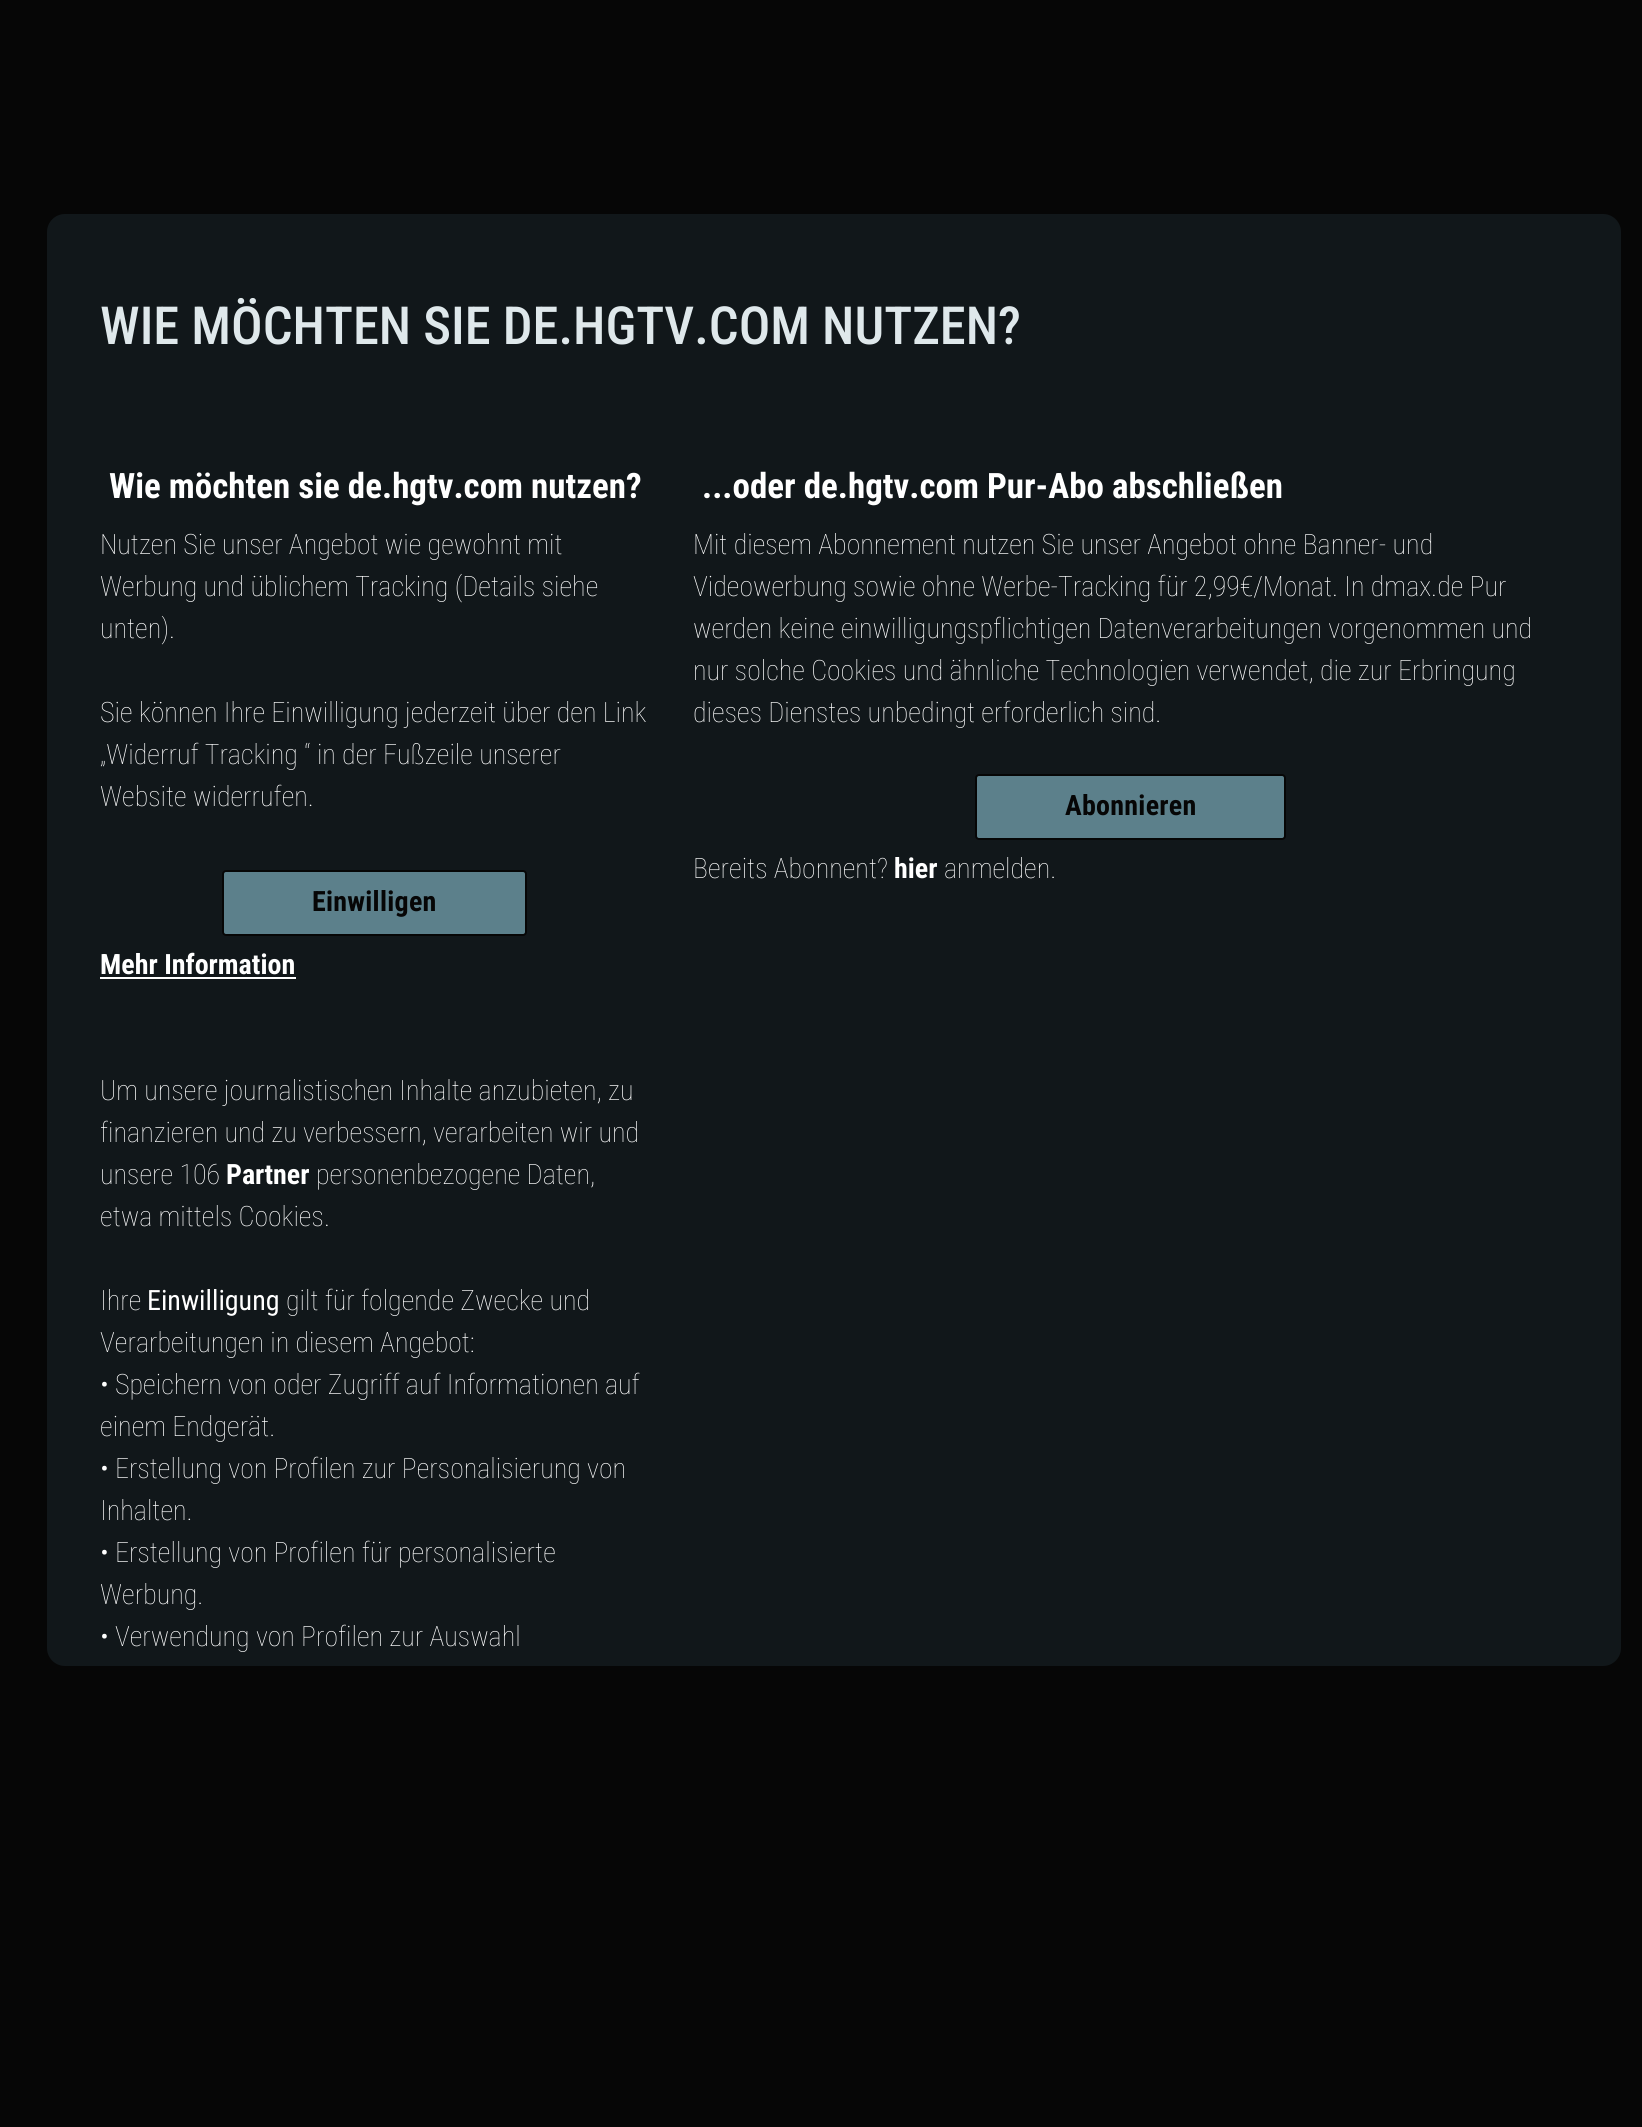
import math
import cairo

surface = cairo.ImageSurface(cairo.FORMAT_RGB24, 1642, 2127)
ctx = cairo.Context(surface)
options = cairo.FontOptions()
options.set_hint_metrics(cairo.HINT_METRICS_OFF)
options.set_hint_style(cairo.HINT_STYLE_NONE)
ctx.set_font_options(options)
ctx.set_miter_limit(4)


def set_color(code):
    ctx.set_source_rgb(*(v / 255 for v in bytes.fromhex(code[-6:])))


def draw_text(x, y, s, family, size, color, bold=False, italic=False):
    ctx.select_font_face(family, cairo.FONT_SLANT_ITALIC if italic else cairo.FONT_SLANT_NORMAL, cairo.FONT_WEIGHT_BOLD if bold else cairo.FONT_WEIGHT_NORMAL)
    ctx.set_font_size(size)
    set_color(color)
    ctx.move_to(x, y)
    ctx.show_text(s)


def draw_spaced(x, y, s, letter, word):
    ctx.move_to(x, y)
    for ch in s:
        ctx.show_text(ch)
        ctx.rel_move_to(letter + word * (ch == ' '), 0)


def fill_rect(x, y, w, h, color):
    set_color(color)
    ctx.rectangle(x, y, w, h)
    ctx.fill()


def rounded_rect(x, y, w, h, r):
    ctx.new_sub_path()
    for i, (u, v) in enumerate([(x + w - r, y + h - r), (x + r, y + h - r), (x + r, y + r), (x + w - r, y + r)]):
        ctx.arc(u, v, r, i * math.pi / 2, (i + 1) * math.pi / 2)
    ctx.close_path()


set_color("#060606")
ctx.paint()
set_color("#11171a")
rounded_rect(47, 214, 1574, 1452, 18)
ctx.fill()
draw_text(100, 344, "WIE MÖCHTEN SIE DE.HGTV.COM NUTZEN?", "Roboto Condensed Medium", 52.5, "#dfe8eb")
draw_text(109, 498, "Wie möchten sie de.hgtv.com nutzen?", "Roboto Condensed", 35, "#ffffff", bold=True)
draw_text(100, 554, "Nutzen Sie unser Angebot wie gewohnt mit", "Roboto Condensed Thin", 28, "#ffffff")
draw_text(100, 596, "Werbung und üblichem Tracking (Details siehe", "Roboto Condensed Thin", 28, "#ffffff")
draw_text(100, 638, "unten).", "Roboto Condensed Thin", 28, "#ffffff")
draw_text(100, 722, "Sie können Ihre Einwilligung jederzeit über den Link", "Roboto Condensed Thin", 28, "#ffffff")
draw_text(100, 764, "„Widerruf Tracking “ in der Fußzeile unserer", "Roboto Condensed Thin", 28, "#ffffff")
draw_text(100, 806, "Website widerrufen.", "Roboto Condensed Thin", 28, "#ffffff")
set_color("#5c808b")
rounded_rect(223, 871, 303, 64, 3)
ctx.fill_preserve()
set_color("#060606")
ctx.stroke()
ctx.select_font_face("Roboto Condensed", cairo.FONT_SLANT_NORMAL, cairo.FONT_WEIGHT_BOLD)
draw_spaced(312, 911, "Einwilligen", 0.25, 0)
draw_text(100, 974, "Mehr Information", "Roboto Condensed", 28, "#ffffff", bold=True)
fill_rect(100, 977, 196, 2, "#ffffff")
draw_text(100, 1100, "Um unsere journalistischen Inhalte anzubieten, zu", "Roboto Condensed Thin", 28, "#ffffff")
draw_text(100, 1142, "finanzieren und zu verbessern, verarbeiten wir und", "Roboto Condensed Thin", 28, "#ffffff")
draw_text(100, 1184, "unsere 106", "Roboto Condensed Thin", 28, "#ffffff")
draw_text(226, 1184, "Partner", "Roboto Condensed", 28, "#ffffff", bold=True)
draw_text(316, 1184, "personenbezogene Daten,", "Roboto Condensed Thin", 28, "#ffffff")
draw_text(100, 1226, "etwa mittels Cookies.", "Roboto Condensed Thin", 28, "#ffffff")
draw_text(100, 1310, "Ihre", "Roboto Condensed Thin", 28, "#ffffff")
draw_text(147, 1310, "Einwilligung", "Roboto Condensed", 28, "#ffffff")
draw_text(286, 1310, "gilt für folgende Zwecke und", "Roboto Condensed Thin", 28, "#ffffff")
draw_text(100, 1352, "Verarbeitungen in diesem Angebot:", "Roboto Condensed Thin", 28, "#ffffff")
draw_text(100, 1394, "• Speichern von oder Zugriff auf Informationen auf", "Roboto Condensed Thin", 28, "#ffffff")
draw_text(100, 1436, "einem Endgerät.", "Roboto Condensed Thin", 28, "#ffffff")
draw_text(100, 1478, "• Erstellung von Profilen zur Personalisierung von", "Roboto Condensed Thin", 28, "#ffffff")
draw_text(100, 1520, "Inhalten.", "Roboto Condensed Thin", 28, "#ffffff")
draw_text(100, 1562, "• Erstellung von Profilen für personalisierte", "Roboto Condensed Thin", 28, "#ffffff")
draw_text(100, 1604, "Werbung.", "Roboto Condensed Thin", 28, "#ffffff")
draw_text(100, 1646, "• Verwendung von Profilen zur Auswahl", "Roboto Condensed Thin", 28, "#ffffff")
draw_text(702, 498, "...oder de.hgtv.com Pur-Abo abschließen", "Roboto Condensed", 35, "#ffffff", bold=True)
draw_text(693, 554, "Mit diesem Abonnement nutzen Sie unser Angebot ohne Banner- und", "Roboto Condensed Thin", 28, "#ffffff")
draw_text(693, 596, "Videowerbung sowie ohne Werbe-Tracking für 2,99€/Monat. In dmax.de Pur", "Roboto Condensed Thin", 28, "#ffffff")
draw_text(693, 638, "werden keine einwilligungspflichtigen Datenverarbeitungen vorgenommen und", "Roboto Condensed Thin", 28, "#ffffff")
draw_text(693, 680, "nur solche Cookies und ähnliche Technologien verwendet, die zur Erbringung", "Roboto Condensed Thin", 28, "#ffffff")
draw_text(693, 722, "dieses Dienstes unbedingt erforderlich sind.", "Roboto Condensed Thin", 28, "#ffffff")
set_color("#5c808b")
rounded_rect(976, 775, 309, 64, 3)
ctx.fill_preserve()
set_color("#060606")
ctx.stroke()
ctx.select_font_face("Roboto Condensed", cairo.FONT_SLANT_NORMAL, cairo.FONT_WEIGHT_BOLD)
draw_spaced(1065, 815, "Abonnieren", 0.25, 0)
draw_text(693, 878, "Bereits Abonnent?", "Roboto Condensed Thin", 28, "#ffffff")
draw_text(894, 878, "hier", "Roboto Condensed", 28, "#ffffff", bold=True)
draw_text(944, 878, "anmelden.", "Roboto Condensed Thin", 28, "#ffffff")
surface.write_to_png("output.png")
